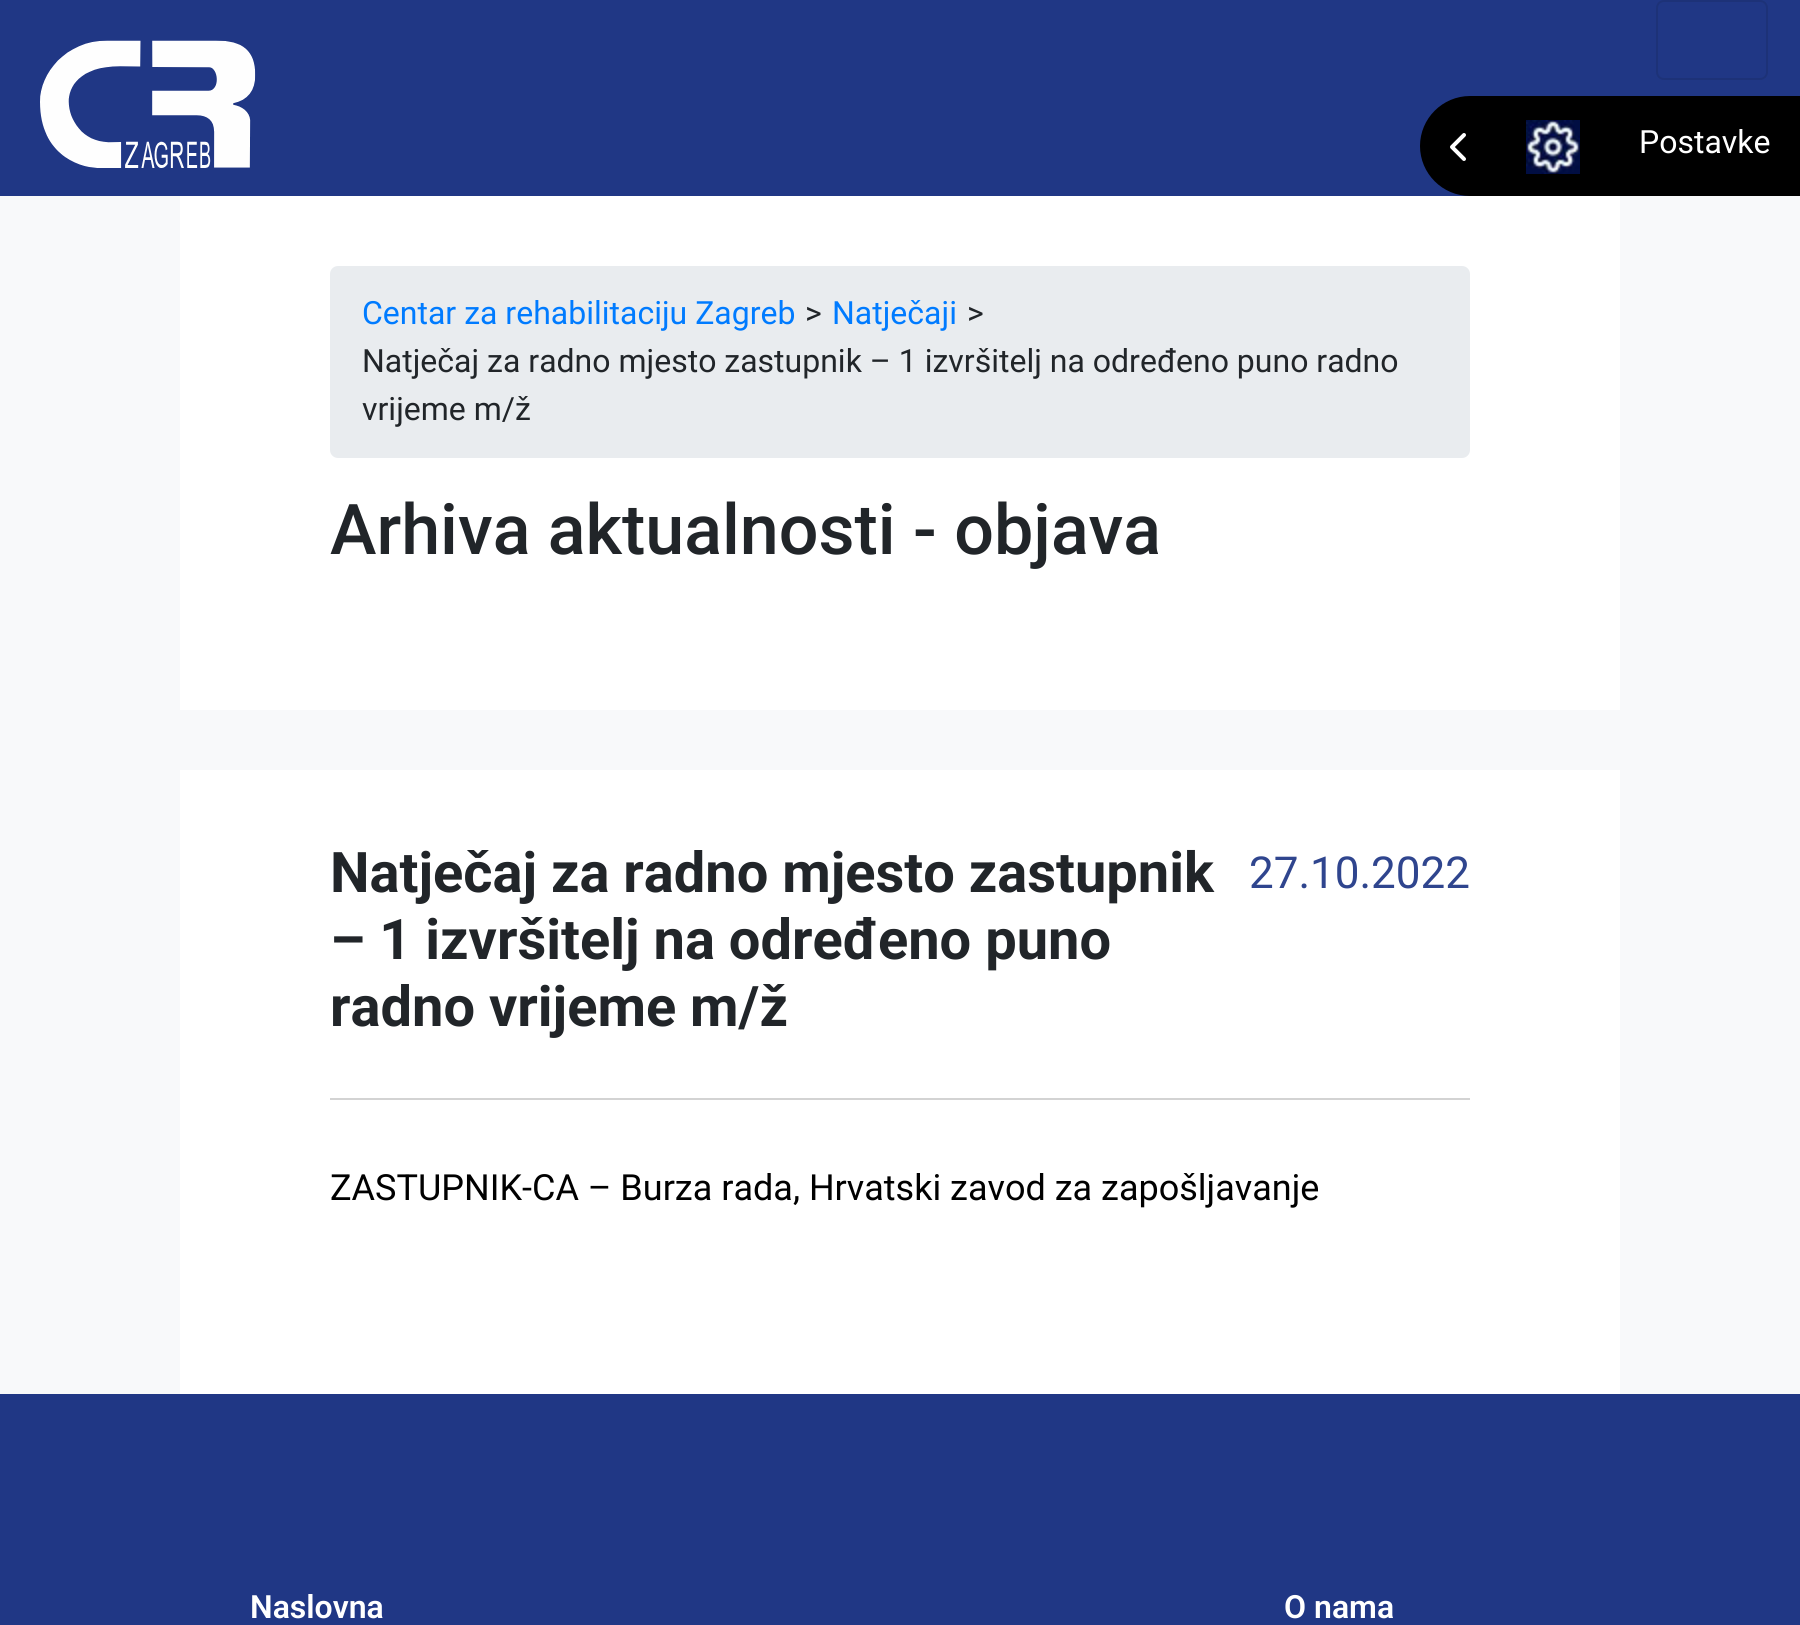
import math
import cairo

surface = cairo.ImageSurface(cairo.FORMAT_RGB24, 1800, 1625)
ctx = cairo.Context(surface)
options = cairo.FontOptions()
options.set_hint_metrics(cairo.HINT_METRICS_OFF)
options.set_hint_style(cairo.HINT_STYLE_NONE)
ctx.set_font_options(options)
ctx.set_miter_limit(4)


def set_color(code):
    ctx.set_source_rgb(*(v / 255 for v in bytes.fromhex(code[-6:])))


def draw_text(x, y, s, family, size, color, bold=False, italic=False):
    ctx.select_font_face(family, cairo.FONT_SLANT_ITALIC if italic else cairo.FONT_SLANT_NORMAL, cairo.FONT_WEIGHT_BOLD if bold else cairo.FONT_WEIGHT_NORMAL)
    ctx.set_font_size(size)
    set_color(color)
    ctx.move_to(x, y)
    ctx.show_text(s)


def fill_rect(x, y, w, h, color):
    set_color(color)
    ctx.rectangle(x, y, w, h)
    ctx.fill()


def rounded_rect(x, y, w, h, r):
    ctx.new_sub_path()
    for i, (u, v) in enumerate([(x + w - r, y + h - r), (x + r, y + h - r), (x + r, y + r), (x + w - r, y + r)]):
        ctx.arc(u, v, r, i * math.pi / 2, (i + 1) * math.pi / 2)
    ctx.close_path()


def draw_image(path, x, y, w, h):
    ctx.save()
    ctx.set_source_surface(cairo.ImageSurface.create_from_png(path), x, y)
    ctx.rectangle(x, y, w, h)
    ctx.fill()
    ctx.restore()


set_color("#203785")
ctx.paint()
draw_image("assets/img1.png", 40, 40, 216, 128)
rounded_rect(1657, 1, 110, 78, 7)
set_color("#1d3278")
ctx.stroke()
set_color("#000000")
ctx.new_path()
ctx.move_to(1470, 96)
ctx.line_to(1800, 96)
ctx.line_to(1800, 196)
ctx.line_to(1470, 196)
ctx.curve_to(1442.5, 196, 1420, 173.5, 1420, 146)
ctx.curve_to(1420, 118.5, 1442.5, 96, 1470, 96)
ctx.close_path()
ctx.fill()
draw_image("assets/img2.png", 1450, 133, 16, 28)
draw_image("assets/img3.png", 1526, 120, 54, 54)
draw_text(1639, 153, "Postavke", "Roboto", 32, "#ffffff")
fill_rect(0, 196, 1800, 1198, "#f8f9fa")
fill_rect(180, 196, 1440, 514, "#ffffff")
set_color("#e9ecef")
rounded_rect(330, 266, 1140, 192, 8)
ctx.fill()
draw_text(362, 324, "Centar za rehabilitaciju Zagreb", "Roboto", 32, "#007bff")
draw_text(805, 324, ">", "Roboto", 32, "#212529")
draw_text(832, 324, "Natječaji", "Roboto", 32, "#007bff")
draw_text(967, 324, ">", "Roboto", 32, "#212529")
draw_text(362, 372, "Natječaj za radno mjesto zastupnik – 1 izvršitelj na određeno puno radno", "Roboto", 32, "#212529")
draw_text(362, 420, "vrijeme m/ž", "Roboto", 32, "#212529")
draw_text(330, 554, "Arhiva aktualnosti - objava", "Roboto Medium", 70, "#212529")
fill_rect(180, 770, 1440, 624, "#ffffff")
fill_rect(330, 1098, 1140, 2, "#d3d3d3")
draw_text(330, 892, "Natječaj za radno mjesto zastupnik", "Roboto", 56, "#212529", bold=True)
draw_text(330, 959, "– 1 izvršitelj na određeno puno", "Roboto", 56, "#212529", bold=True)
draw_text(330, 1026, "radno vrijeme m/ž", "Roboto", 56, "#212529", bold=True)
draw_text(1249, 888, "27.10.2022", "Roboto", 44, "#2f458e")
draw_text(330, 1200, "ZASTUPNIK-CA – Burza rada, Hrvatski zavod za zapošljavanje", "Roboto", 36, "#000000")
draw_text(250, 1618, "Naslovna", "Roboto SemiBold", 32, "#ffffff")
draw_text(1284, 1618, "O nama", "Roboto SemiBold", 32, "#ffffff")
surface.write_to_png("output.png")
